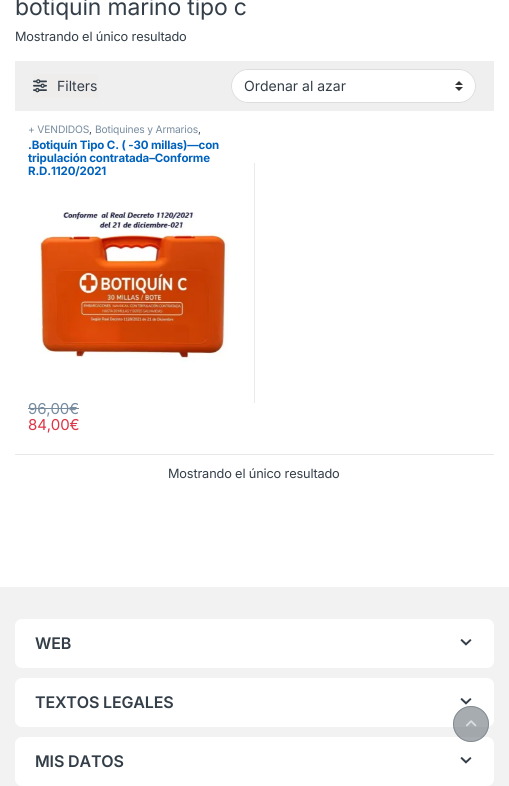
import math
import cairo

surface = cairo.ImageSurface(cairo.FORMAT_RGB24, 509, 786)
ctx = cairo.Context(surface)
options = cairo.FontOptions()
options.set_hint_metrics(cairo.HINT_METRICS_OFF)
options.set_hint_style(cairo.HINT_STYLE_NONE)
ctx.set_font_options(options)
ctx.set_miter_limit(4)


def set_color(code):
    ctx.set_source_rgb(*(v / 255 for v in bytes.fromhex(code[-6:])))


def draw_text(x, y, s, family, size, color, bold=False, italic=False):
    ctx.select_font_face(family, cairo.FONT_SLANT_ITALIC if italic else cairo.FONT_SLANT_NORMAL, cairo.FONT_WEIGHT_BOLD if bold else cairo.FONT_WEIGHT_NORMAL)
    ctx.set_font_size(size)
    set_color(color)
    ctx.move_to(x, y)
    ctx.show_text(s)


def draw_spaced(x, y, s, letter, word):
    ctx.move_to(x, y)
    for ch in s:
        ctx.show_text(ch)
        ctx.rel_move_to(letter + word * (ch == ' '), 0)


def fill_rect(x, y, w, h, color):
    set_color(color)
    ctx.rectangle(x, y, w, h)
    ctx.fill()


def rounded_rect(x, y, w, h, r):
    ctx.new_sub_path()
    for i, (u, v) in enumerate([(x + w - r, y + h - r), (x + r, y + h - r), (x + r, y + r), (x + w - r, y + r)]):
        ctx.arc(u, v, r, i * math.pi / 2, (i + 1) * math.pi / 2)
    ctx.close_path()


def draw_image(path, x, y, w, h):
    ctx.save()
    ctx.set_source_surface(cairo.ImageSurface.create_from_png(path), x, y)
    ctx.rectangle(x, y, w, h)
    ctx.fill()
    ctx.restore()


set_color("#ffffff")
ctx.paint()
ctx.select_font_face("Inter")
ctx.set_font_size(22.9)
set_color("#333e48")
draw_spaced(15, 15, "botiquín marino tipo c", -0.15, 0)
ctx.set_font_size(12.75)
draw_spaced(15, 41, "Mostrando el único resultado", -0.15, 0)
fill_rect(15, 61, 479, 50, "#efefef")
fill_rect(33, 74, 65, 24, "#efecec")
draw_image("assets/img1.png", 33, 79, 14, 14)
draw_text(57, 91, "Filters", "Inter", 14, "#333e48")
set_color("#ffffff")
rounded_rect(231, 69, 245, 34, 17)
ctx.fill()
draw_image("assets/img2.png", 455, 81, 8, 10)
rounded_rect(231.5, 69.5, 244, 33, 16.5)
set_color("#dddddd")
ctx.set_line_width(1)
ctx.stroke()
draw_text(244, 91, "Ordenar al azar", "Inter", 14, "#333e48")
ctx.set_font_size(10.25)
set_color("#768b9e")
draw_spaced(28, 133, "+ VENDIDOS", -0.15, 0)
set_color("#333e48")
draw_spaced(89, 133, ",", -0.15, 0)
set_color("#768b9e")
draw_spaced(95, 133, "Botiquines y Armarios", -0.15, 0)
set_color("#333e48")
draw_spaced(198, 133, ",", -0.15, 0)
ctx.select_font_face("Inter", cairo.FONT_SLANT_NORMAL, cairo.FONT_WEIGHT_BOLD)
ctx.set_font_size(11.5)
set_color("#0062bd")
draw_spaced(28, 149, ".Botiquín Tipo C. ( -30 millas)—con", -0.15, 0)
draw_spaced(28, 162, "tripulación contratada–Conforme", -0.15, 0)
draw_spaced(28, 175, "R.D.1120/2021", -0.15, 0)
draw_image("assets/img3.png", 38, 212, 191, 150)
ctx.select_font_face("Inter")
ctx.set_font_size(15)
set_color("#768b9e")
draw_spaced(28, 414, "96,00€", -0.15, 0)
fill_rect(28, 408, 51, 1, "#768b9e")
set_color("#dc3545")
draw_spaced(28, 430, "84,00€", -0.15, 0)
fill_rect(254, 163, 1, 240, "#eaeaea")
fill_rect(15, 454, 479, 1, "#e7e7e7")
ctx.set_font_size(12.75)
set_color("#333e48")
draw_spaced(168, 478, "Mostrando el único resultado", -0.15, 0)
fill_rect(0, 587, 509, 199, "#f2f2f2")
set_color("#ffffff")
rounded_rect(15, 619, 479, 49, 7)
ctx.fill()
ctx.select_font_face("Inter SemiBold")
ctx.set_font_size(16)
set_color("#333e48")
draw_spaced(35, 649, "WEB", -0.15, 0)
draw_image("assets/img4.png", 460, 639, 12, 7)
set_color("#ffffff")
rounded_rect(15, 678, 479, 49, 7)
ctx.fill()
set_color("#333e48")
draw_spaced(35, 708, "TEXTOS LEGALES", -0.15, 0)
draw_image("assets/img4.png", 460, 698, 12, 7)
set_color("#ffffff")
rounded_rect(15, 737, 479, 49, 7)
ctx.fill()
set_color("#333e48")
draw_spaced(35, 767, "MIS DATOS", -0.15, 0)
draw_image("assets/img4.png", 460, 757, 12, 7)
ctx.set_source_rgba(0.424, 0.459, 0.49, 0.6)
ctx.arc(471, 724, 18, 0, 2 * math.pi)
ctx.fill()
ctx.arc(471, 724, 17.5, 0, 2 * math.pi)
ctx.stroke()
draw_image("assets/img5.png", 466, 720, 11, 7)
surface.write_to_png("output.png")
